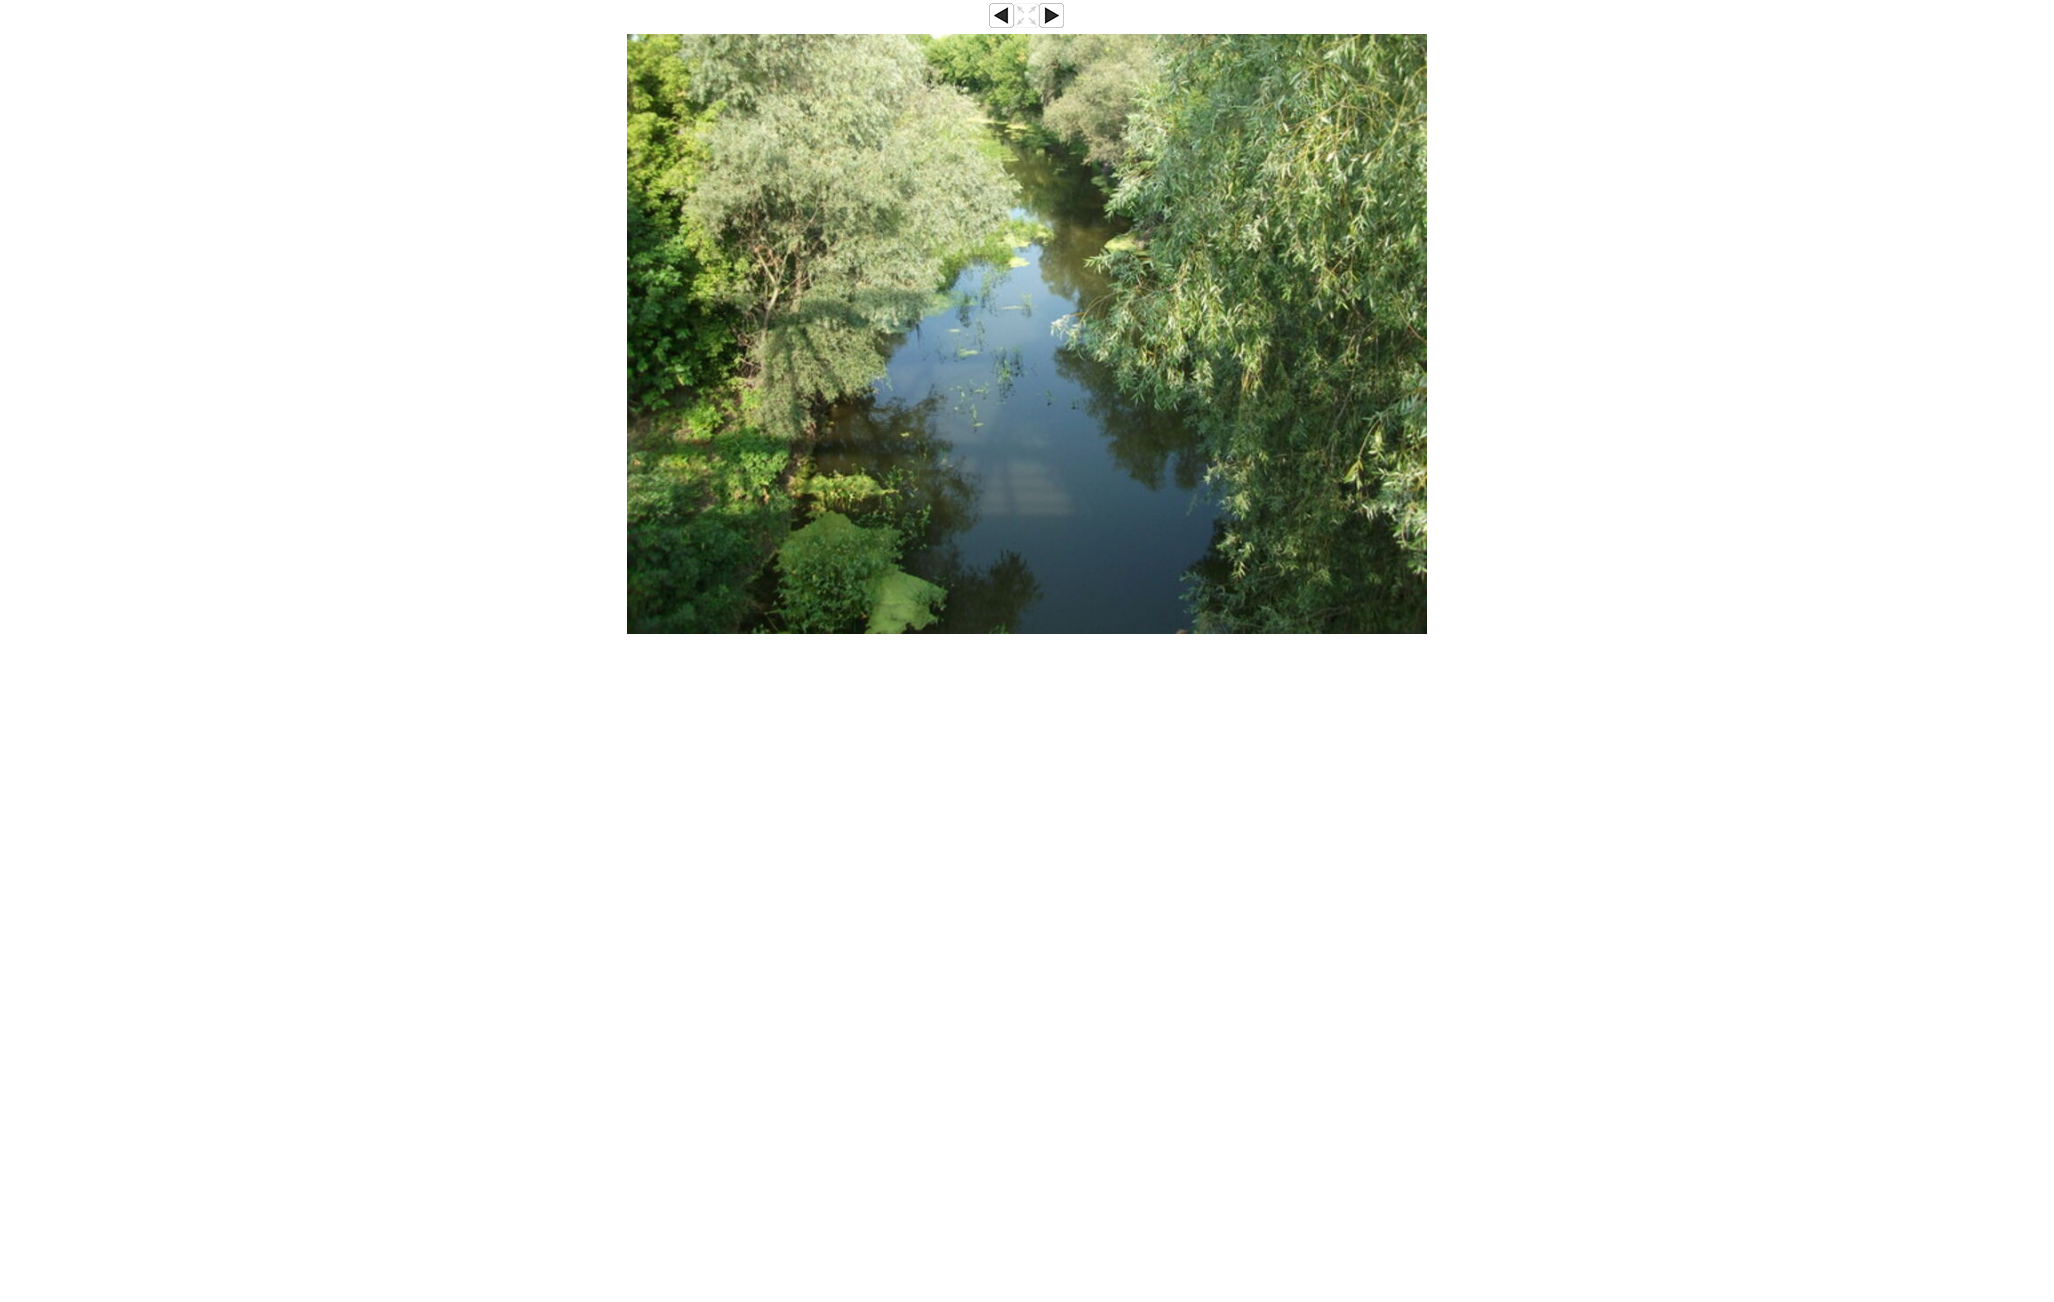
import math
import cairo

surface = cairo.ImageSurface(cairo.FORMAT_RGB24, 2054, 1302)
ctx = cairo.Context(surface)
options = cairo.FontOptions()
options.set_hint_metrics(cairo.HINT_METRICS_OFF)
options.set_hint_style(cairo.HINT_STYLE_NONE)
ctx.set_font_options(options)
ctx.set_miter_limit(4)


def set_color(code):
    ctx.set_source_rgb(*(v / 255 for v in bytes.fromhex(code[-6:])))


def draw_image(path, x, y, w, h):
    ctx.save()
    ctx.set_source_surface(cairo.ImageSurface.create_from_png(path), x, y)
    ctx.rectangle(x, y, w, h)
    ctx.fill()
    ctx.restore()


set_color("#ffffff")
ctx.paint()
draw_image("assets/img1.png", 989, 3, 25, 25)
draw_image("assets/img2.png", 1014, 3, 25, 25)
draw_image("assets/img3.png", 1039, 3, 25, 25)
draw_image("assets/img4.png", 627, 34, 800, 600)
surface.write_to_png("output.png")
